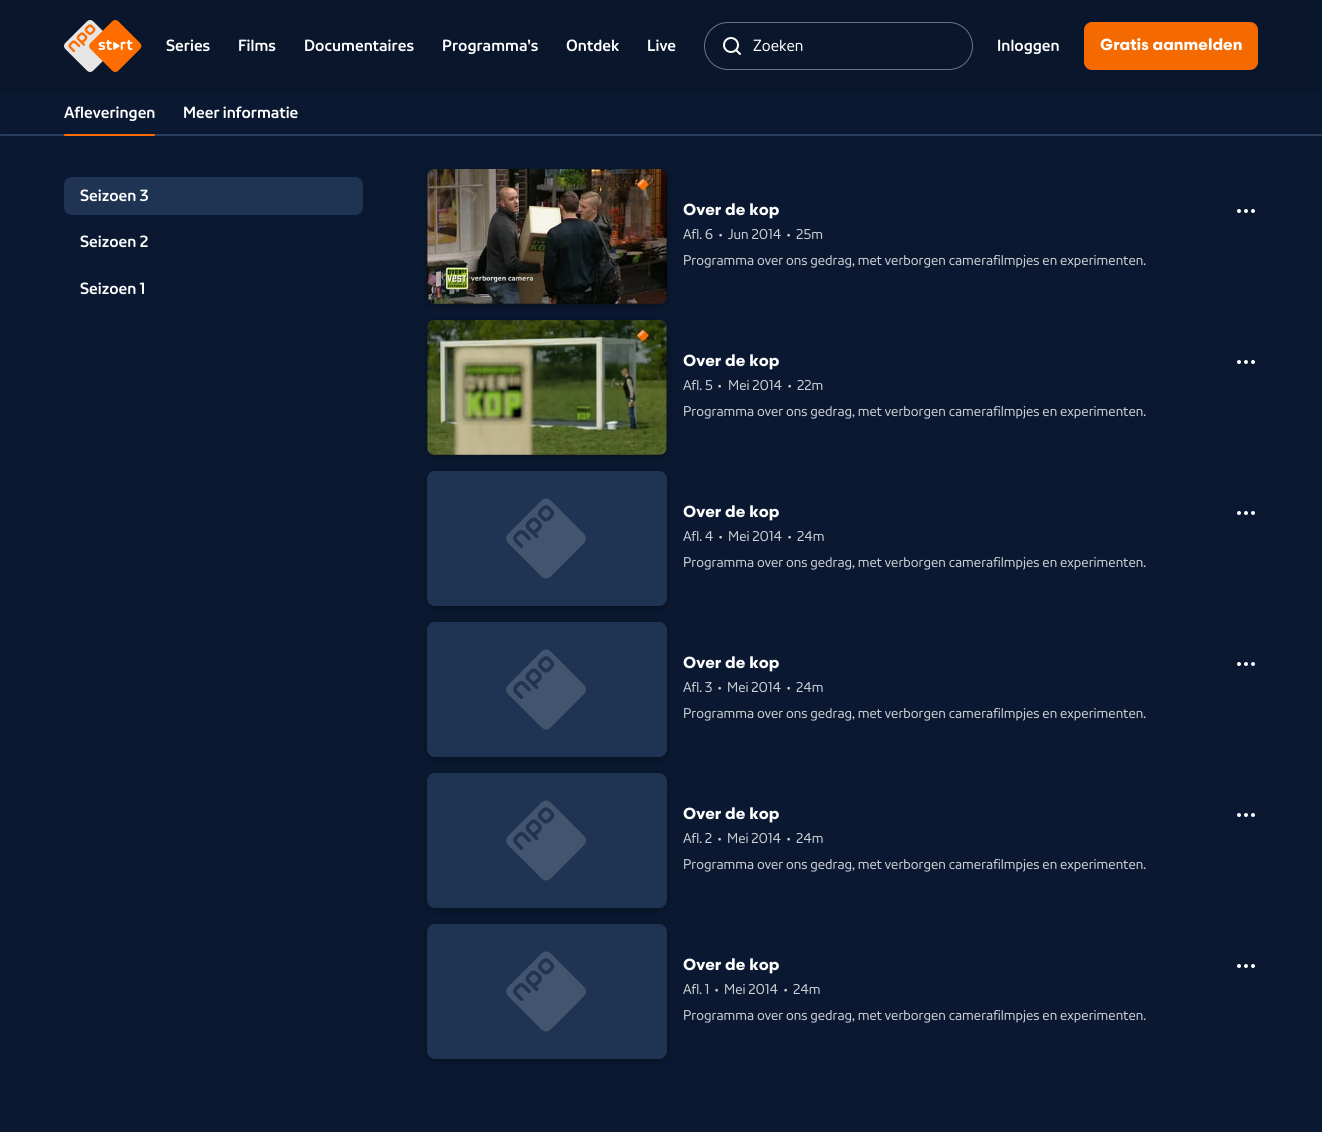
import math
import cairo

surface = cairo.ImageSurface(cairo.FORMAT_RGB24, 1322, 1132)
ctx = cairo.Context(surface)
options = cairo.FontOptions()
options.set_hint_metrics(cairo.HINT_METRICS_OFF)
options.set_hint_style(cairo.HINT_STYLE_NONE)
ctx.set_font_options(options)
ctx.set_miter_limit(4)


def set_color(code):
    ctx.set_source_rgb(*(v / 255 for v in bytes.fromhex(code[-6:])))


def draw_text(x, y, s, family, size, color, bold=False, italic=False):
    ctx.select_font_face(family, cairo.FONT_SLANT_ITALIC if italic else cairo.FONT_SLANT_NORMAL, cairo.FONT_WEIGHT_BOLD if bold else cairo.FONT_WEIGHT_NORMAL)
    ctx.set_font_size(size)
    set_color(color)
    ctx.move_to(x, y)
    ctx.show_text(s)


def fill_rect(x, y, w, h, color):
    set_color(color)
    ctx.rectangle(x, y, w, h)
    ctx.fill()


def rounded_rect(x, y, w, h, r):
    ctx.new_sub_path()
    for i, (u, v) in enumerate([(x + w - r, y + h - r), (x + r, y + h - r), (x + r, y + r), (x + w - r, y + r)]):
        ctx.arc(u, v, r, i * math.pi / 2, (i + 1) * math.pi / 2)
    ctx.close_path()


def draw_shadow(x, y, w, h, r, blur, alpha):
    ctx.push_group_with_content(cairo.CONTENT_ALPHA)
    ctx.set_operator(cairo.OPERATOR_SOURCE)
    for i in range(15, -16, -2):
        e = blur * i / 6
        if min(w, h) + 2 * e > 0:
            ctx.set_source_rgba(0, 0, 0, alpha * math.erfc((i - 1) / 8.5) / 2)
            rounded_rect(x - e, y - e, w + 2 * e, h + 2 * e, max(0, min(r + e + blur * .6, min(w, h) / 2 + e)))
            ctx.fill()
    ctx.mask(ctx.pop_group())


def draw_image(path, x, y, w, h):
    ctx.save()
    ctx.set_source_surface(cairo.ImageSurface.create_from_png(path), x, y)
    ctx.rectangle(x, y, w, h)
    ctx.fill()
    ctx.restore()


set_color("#0a1931")
ctx.paint()
fill_rect(0, 0, 1322, 92, "#09162b")
draw_image("assets/img1.png", 64, 20, 78, 52)
draw_text(166, 51, "Series", "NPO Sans", 16, "#ffffff", bold=True)
draw_text(238, 51, "Films", "NPO Sans", 16, "#ffffff", bold=True)
draw_text(304, 51, "Documentaires", "NPO Sans", 16, "#ffffff", bold=True)
draw_text(442, 51, "Programma's", "NPO Sans", 16, "#ffffff", bold=True)
draw_text(566, 51, "Ontdek", "NPO Sans", 16, "#ffffff", bold=True)
draw_text(647, 51, "Live", "NPO Sans", 16, "#ffffff", bold=True)
rounded_rect(704.5, 22.5, 268, 47, 23.5)
set_color("#6b7380")
ctx.set_line_width(1)
ctx.stroke()
draw_image("assets/img2.png", 723, 37, 18, 18)
draw_text(753, 51, "Zoeken", "NPO Sans", 16, "#ffffff")
draw_text(997, 51, "Inloggen", "NPO Sans", 16, "#ffffff", bold=True)
set_color("#f56a00")
rounded_rect(1084, 22, 174, 48, 8)
ctx.fill()
draw_text(1100, 50, "Gratis aanmelden", "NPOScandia", 16, "#ffffff", bold=True)
draw_text(64, 118, "Afleveringen", "NPO Sans", 16, "#ffffff", bold=True)
set_color("#293d5d")
rounded_rect(0, 134, 1322, 2, 1)
ctx.fill()
set_color("#ff6d00")
rounded_rect(64, 134, 91, 2, 1)
ctx.fill()
draw_text(183, 118, "Meer informatie", "NPO Sans", 16, "#ffffff", bold=True)
set_color("#1f3353")
rounded_rect(64, 177, 299, 38, 8)
ctx.fill()
draw_text(80, 201, "Seizoen 3", "NPO Sans", 16, "#ffffff", bold=True)
draw_text(80, 247, "Seizoen 2", "NPO Sans", 16, "#ffffff", bold=True)
draw_text(80, 294, "Seizoen 1", "NPO Sans", 16, "#ffffff", bold=True)
set_color("#000000")
draw_shadow(427, 171, 240, 135, 8, 4, 0.35)
set_color("#1f3353")
rounded_rect(427, 169, 240, 135, 8)
ctx.fill()
draw_image("assets/img3.png", 427, 169, 240, 135)
draw_text(683, 215, "Over de kop", "NPOScandia", 16, "#ffffff", bold=True)
draw_text(683, 239, "Afl. 6", "NPO Sans", 14, "#ced1d6")
draw_text(719, 239, "•", "NPO Sans", 14, "#ced1d6")
draw_text(728, 239, "Jun 2014", "NPO Sans", 14, "#ced1d6")
draw_text(787, 239, "•", "NPO Sans", 14, "#ced1d6")
draw_text(796, 239, "25m", "NPO Sans", 14, "#ced1d6")
draw_text(683, 265, "Programma over ons gedrag, met verborgen camerafilmpjes en experimenten.", "NPO Sans", 14, "#ced1d6")
draw_image("assets/img4.png", 1237, 209, 18, 4)
set_color("#000000")
draw_shadow(427, 322, 240, 135, 8, 4, 0.35)
set_color("#1f3353")
rounded_rect(427, 320, 240, 135, 8)
ctx.fill()
draw_image("assets/img5.png", 427, 320, 240, 135)
draw_text(683, 366, "Over de kop", "NPOScandia", 16, "#ffffff", bold=True)
draw_text(683, 390, "Afl. 5", "NPO Sans", 14, "#ced1d6")
draw_text(718, 390, "•", "NPO Sans", 14, "#ced1d6")
draw_text(728, 390, "Mei 2014", "NPO Sans", 14, "#ced1d6")
draw_text(788, 390, "•", "NPO Sans", 14, "#ced1d6")
draw_text(797, 390, "22m", "NPO Sans", 14, "#ced1d6")
draw_text(683, 416, "Programma over ons gedrag, met verborgen camerafilmpjes en experimenten.", "NPO Sans", 14, "#ced1d6")
draw_image("assets/img4.png", 1237, 360, 18, 4)
set_color("#000000")
draw_shadow(427, 473, 240, 135, 8, 4, 0.35)
set_color("#1f3353")
rounded_rect(427, 471, 240, 135, 8)
ctx.fill()
draw_image("assets/img6.png", 506, 498, 80, 81)
draw_text(683, 517, "Over de kop", "NPOScandia", 16, "#ffffff", bold=True)
draw_text(683, 541, "Afl. 4", "NPO Sans", 14, "#ced1d6")
draw_text(719, 541, "•", "NPO Sans", 14, "#ced1d6")
draw_text(728, 541, "Mei 2014", "NPO Sans", 14, "#ced1d6")
draw_text(788, 541, "•", "NPO Sans", 14, "#ced1d6")
draw_text(797, 541, "24m", "NPO Sans", 14, "#ced1d6")
draw_text(683, 567, "Programma over ons gedrag, met verborgen camerafilmpjes en experimenten.", "NPO Sans", 14, "#ced1d6")
draw_image("assets/img4.png", 1237, 511, 18, 4)
set_color("#000000")
draw_shadow(427, 624, 240, 135, 8, 4, 0.35)
set_color("#1f3353")
rounded_rect(427, 622, 240, 135, 8)
ctx.fill()
draw_image("assets/img6.png", 506, 649, 80, 81)
draw_text(683, 668, "Over de kop", "NPOScandia", 16, "#ffffff", bold=True)
draw_text(683, 692, "Afl. 3", "NPO Sans", 14, "#ced1d6")
draw_text(718, 692, "•", "NPO Sans", 14, "#ced1d6")
draw_text(727, 692, "Mei 2014", "NPO Sans", 14, "#ced1d6")
draw_text(787, 692, "•", "NPO Sans", 14, "#ced1d6")
draw_text(796, 692, "24m", "NPO Sans", 14, "#ced1d6")
draw_text(683, 718, "Programma over ons gedrag, met verborgen camerafilmpjes en experimenten.", "NPO Sans", 14, "#ced1d6")
draw_image("assets/img4.png", 1237, 662, 18, 4)
set_color("#000000")
draw_shadow(427, 775, 240, 135, 8, 4, 0.35)
set_color("#1f3353")
rounded_rect(427, 773, 240, 135, 8)
ctx.fill()
draw_image("assets/img6.png", 506, 800, 80, 81)
draw_text(683, 819, "Over de kop", "NPOScandia", 16, "#ffffff", bold=True)
draw_text(683, 843, "Afl. 2", "NPO Sans", 14, "#ced1d6")
draw_text(718, 843, "•", "NPO Sans", 14, "#ced1d6")
draw_text(727, 843, "Mei 2014", "NPO Sans", 14, "#ced1d6")
draw_text(787, 843, "•", "NPO Sans", 14, "#ced1d6")
draw_text(796, 843, "24m", "NPO Sans", 14, "#ced1d6")
draw_text(683, 869, "Programma over ons gedrag, met verborgen camerafilmpjes en experimenten.", "NPO Sans", 14, "#ced1d6")
draw_image("assets/img4.png", 1237, 813, 18, 4)
set_color("#000000")
draw_shadow(427, 926, 240, 135, 8, 4, 0.35)
set_color("#1f3353")
rounded_rect(427, 924, 240, 135, 8)
ctx.fill()
draw_image("assets/img6.png", 506, 951, 80, 81)
draw_text(683, 970, "Over de kop", "NPOScandia", 16, "#ffffff", bold=True)
draw_text(683, 994, "Afl. 1", "NPO Sans", 14, "#ced1d6")
draw_text(715, 994, "•", "NPO Sans", 14, "#ced1d6")
draw_text(724, 994, "Mei 2014", "NPO Sans", 14, "#ced1d6")
draw_text(784, 994, "•", "NPO Sans", 14, "#ced1d6")
draw_text(793, 994, "24m", "NPO Sans", 14, "#ced1d6")
draw_text(683, 1020, "Programma over ons gedrag, met verborgen camerafilmpjes en experimenten.", "NPO Sans", 14, "#ced1d6")
draw_image("assets/img4.png", 1237, 964, 18, 4)
surface.write_to_png("output.png")
